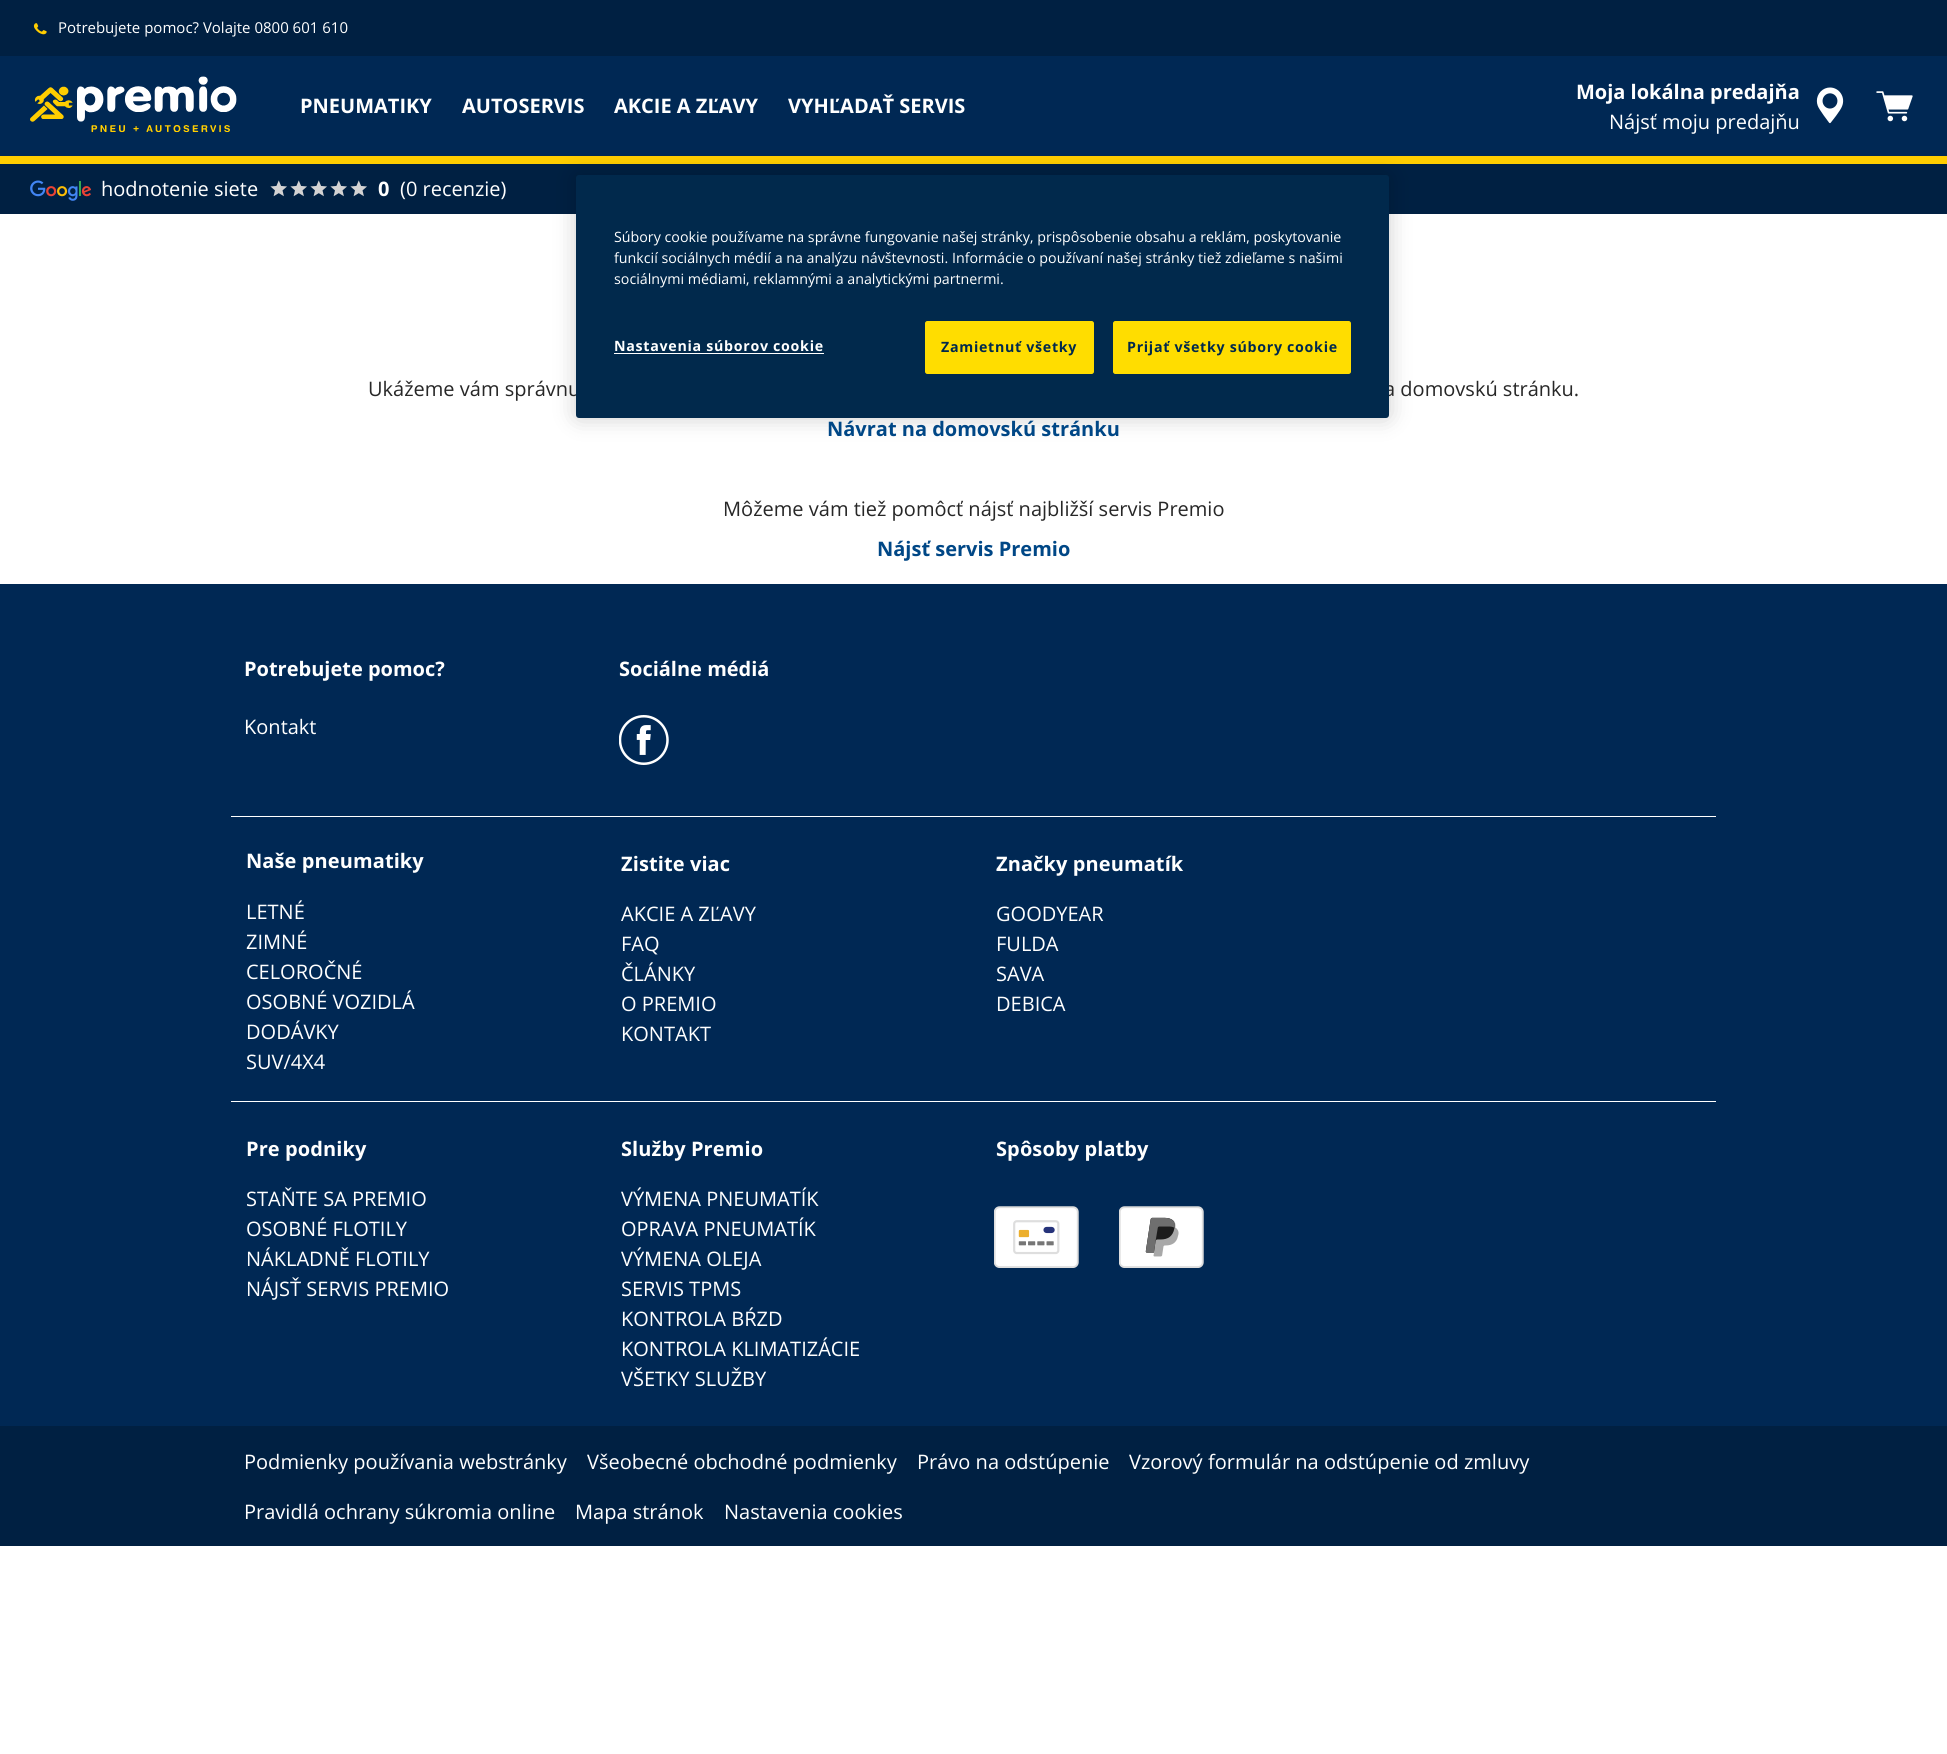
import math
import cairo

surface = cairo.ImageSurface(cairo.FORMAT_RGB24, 1947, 1754)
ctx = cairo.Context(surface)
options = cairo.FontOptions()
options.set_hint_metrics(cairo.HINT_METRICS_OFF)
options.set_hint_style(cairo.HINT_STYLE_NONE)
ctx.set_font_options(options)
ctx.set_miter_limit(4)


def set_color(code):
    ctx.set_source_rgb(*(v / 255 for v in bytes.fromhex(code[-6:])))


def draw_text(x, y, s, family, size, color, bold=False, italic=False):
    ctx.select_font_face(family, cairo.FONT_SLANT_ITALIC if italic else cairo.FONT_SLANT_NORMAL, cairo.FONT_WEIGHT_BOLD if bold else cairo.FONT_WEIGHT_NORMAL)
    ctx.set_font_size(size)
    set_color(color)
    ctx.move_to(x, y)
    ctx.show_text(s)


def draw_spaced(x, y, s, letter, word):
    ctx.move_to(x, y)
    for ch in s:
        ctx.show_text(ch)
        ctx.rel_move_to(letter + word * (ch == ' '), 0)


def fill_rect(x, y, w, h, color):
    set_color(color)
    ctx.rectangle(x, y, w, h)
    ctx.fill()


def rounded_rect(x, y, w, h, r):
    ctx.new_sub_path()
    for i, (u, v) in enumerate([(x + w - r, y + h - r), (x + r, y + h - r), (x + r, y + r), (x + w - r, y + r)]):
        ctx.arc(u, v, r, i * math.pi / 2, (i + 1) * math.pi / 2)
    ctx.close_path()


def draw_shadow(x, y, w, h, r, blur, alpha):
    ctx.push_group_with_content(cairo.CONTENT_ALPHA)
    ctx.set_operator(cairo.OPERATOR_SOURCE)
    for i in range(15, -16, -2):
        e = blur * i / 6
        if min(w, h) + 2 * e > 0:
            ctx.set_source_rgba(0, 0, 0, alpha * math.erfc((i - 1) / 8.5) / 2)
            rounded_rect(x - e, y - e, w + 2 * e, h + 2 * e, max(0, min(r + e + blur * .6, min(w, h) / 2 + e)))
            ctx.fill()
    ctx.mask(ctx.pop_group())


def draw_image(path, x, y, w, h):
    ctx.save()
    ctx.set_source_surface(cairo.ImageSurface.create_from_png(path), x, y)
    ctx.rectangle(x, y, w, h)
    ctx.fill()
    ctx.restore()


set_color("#ffffff")
ctx.paint()
fill_rect(0, 56, 1947, 100, "#002854")
fill_rect(0, 156, 1947, 8, "#ffcd00")
fill_rect(0, 0, 1947, 56, "#002042")
draw_image("assets/img1.png", 33, 23, 14, 12)
draw_text(58, 33, "Potrebujete pomoc? Volajte 0800 601 610", "Open Sans", 15, "#ffffff")
draw_image("assets/img2.png", 30, 76, 207, 57)
draw_text(300, 113, "PNEUMATIKY", "Open Sans", 20, "#ffffff", bold=True)
draw_text(462, 113, "AUTOSERVIS", "Open Sans", 20, "#ffffff", bold=True)
draw_text(614, 113, "AKCIE A ZĽAVY", "Open Sans", 20, "#ffffff", bold=True)
draw_text(788, 113, "VYHĽADAŤ SERVIS", "Open Sans", 20, "#ffffff", bold=True)
draw_text(1576, 99, "Moja lokálna predajňa", "Open Sans", 20, "#ffffff", bold=True)
draw_text(1609, 129, "Nájsť moju predajňu", "Open Sans", 20, "#ffffff")
draw_image("assets/img3.png", 1816, 87, 28, 37)
draw_image("assets/img4.png", 1876, 91, 37, 31)
fill_rect(0, 164, 1947, 50, "#002042")
draw_image("assets/img5.png", 30, 180, 61, 21)
draw_text(101, 196, "hodnotenie siete", "Open Sans", 20, "#ffffff")
draw_image("assets/img6.png", 270, 180, 17, 17)
draw_image("assets/img6.png", 290, 180, 17, 17)
draw_image("assets/img6.png", 310, 180, 17, 17)
draw_image("assets/img6.png", 330, 180, 17, 17)
draw_image("assets/img6.png", 350, 180, 17, 17)
ctx.select_font_face("Open Sans", cairo.FONT_SLANT_NORMAL, cairo.FONT_WEIGHT_BOLD)
draw_spaced(378, 196, "0", 0.1, 0)
draw_text(400, 196, "(0 recenzie)", "Open Sans", 20, "#ffffff")
set_color("#000000")
draw_shadow(576, 175, 813, 243, 3, 11, 0.2)
draw_text(368, 396, "Ukážeme vám správnu", "Open Sans", 20, "#272727")
draw_text(1384, 396, "a domovskú stránku.", "Open Sans", 20, "#272727")
set_color("#01294c")
rounded_rect(576, 175, 813, 243, 3)
ctx.fill()
draw_text(614, 242, "Súbory cookie používame na správne fungovanie našej stránky, prispôsobenie obsahu a reklám, poskytovanie", "Open Sans", 14.23, "#ffffff")
draw_text(614, 263, "funkcií sociálnych médií a na analýzu návštevnosti. Informácie o používaní našej stránky tiež zdieľame s našimi", "Open Sans", 14.23, "#ffffff")
draw_text(614, 284, "sociálnymi médiami, reklamnými a analytickými partnermi.", "Open Sans", 14.23, "#ffffff")
ctx.select_font_face("Open Sans", cairo.FONT_SLANT_NORMAL, cairo.FONT_WEIGHT_BOLD)
draw_spaced(614, 351, "Nastavenia súborov cookie", 0.7, 0)
fill_rect(614, 353, 210, 1, "#ffffff")
set_color("#ffdd00")
rounded_rect(925.5, 321.5, 168, 52, 2)
ctx.fill_preserve()
ctx.set_line_width(1)
ctx.stroke()
set_color("#01294c")
draw_spaced(941, 352, "Zamietnuť všetky", 0.7, 0)
set_color("#ffdd00")
rounded_rect(1113.5, 321.5, 237, 52, 2)
ctx.fill_preserve()
ctx.stroke()
set_color("#01294c")
draw_spaced(1127, 352, "Prijať všetky súbory cookie", 0.7, 0)
draw_text(827, 436, "Návrat na domovskú stránku", "Open Sans", 20, "#004786", bold=True)
draw_text(723, 516, "Môžeme vám tiež pomôcť nájsť najbližší servis Premio", "Open Sans", 20, "#272727")
draw_text(877, 556, "Nájsť servis Premio", "Open Sans", 20, "#004786", bold=True)
fill_rect(0, 584, 1947, 842, "#002854")
draw_text(244, 676, "Potrebujete pomoc?", "Open Sans", 20, "#ffffff", bold=True)
draw_text(244, 734, "Kontakt", "Open Sans", 20, "#ffffff")
draw_text(619, 676, "Sociálne médiá", "Open Sans", 20, "#ffffff", bold=True)
draw_image("assets/img7.png", 619, 715, 50, 50)
fill_rect(231, 816, 1485, 1, "#ffffff")
draw_spaced(246, 868, "Naše pneumatiky", 0.1, 0)
draw_text(246, 919, "LETNÉ", "Open Sans", 20, "#ffffff")
draw_text(246, 949, "ZIMNÉ", "Open Sans", 20, "#ffffff")
draw_text(246, 979, "CELOROČNÉ", "Open Sans", 20, "#ffffff")
draw_text(246, 1009, "OSOBNÉ VOZIDLÁ", "Open Sans", 20, "#ffffff")
draw_text(246, 1039, "DODÁVKY", "Open Sans", 20, "#ffffff")
draw_text(246, 1069, "SUV/4X4", "Open Sans", 20, "#ffffff")
ctx.select_font_face("Open Sans", cairo.FONT_SLANT_NORMAL, cairo.FONT_WEIGHT_BOLD)
draw_spaced(621, 871, "Zistite viac", 0.1, 0)
draw_text(621, 921, "AKCIE A ZĽAVY", "Open Sans", 20, "#ffffff")
draw_text(621, 951, "FAQ", "Open Sans", 20, "#ffffff")
draw_text(621, 981, "ČLÁNKY", "Open Sans", 20, "#ffffff")
draw_text(621, 1011, "O PREMIO", "Open Sans", 20, "#ffffff")
draw_text(621, 1041, "KONTAKT", "Open Sans", 20, "#ffffff")
ctx.select_font_face("Open Sans", cairo.FONT_SLANT_NORMAL, cairo.FONT_WEIGHT_BOLD)
draw_spaced(996, 871, "Značky pneumatík", 0.1, 0)
draw_text(996, 921, "GOODYEAR", "Open Sans", 20, "#ffffff")
draw_text(996, 951, "FULDA", "Open Sans", 20, "#ffffff")
draw_text(996, 981, "SAVA", "Open Sans", 20, "#ffffff")
draw_text(996, 1011, "DEBICA", "Open Sans", 20, "#ffffff")
fill_rect(231, 1101, 1485, 1, "#ffffff")
ctx.select_font_face("Open Sans", cairo.FONT_SLANT_NORMAL, cairo.FONT_WEIGHT_BOLD)
draw_spaced(246, 1156, "Pre podniky", 0.1, 0)
draw_text(246, 1206, "STAŇTE SA PREMIO", "Open Sans", 20, "#ffffff")
draw_text(246, 1236, "OSOBNÉ FLOTILY", "Open Sans", 20, "#ffffff")
draw_text(246, 1266, "NÁKLADNĚ FLOTILY", "Open Sans", 20, "#ffffff")
draw_text(246, 1296, "NÁJSŤ SERVIS PREMIO", "Open Sans", 20, "#ffffff")
ctx.select_font_face("Open Sans", cairo.FONT_SLANT_NORMAL, cairo.FONT_WEIGHT_BOLD)
draw_spaced(621, 1156, "Služby Premio", 0.1, 0)
draw_text(621, 1206, "VÝMENA PNEUMATÍK", "Open Sans", 20, "#ffffff")
draw_text(621, 1236, "OPRAVA PNEUMATÍK", "Open Sans", 20, "#ffffff")
draw_text(621, 1266, "VÝMENA OLEJA", "Open Sans", 20, "#ffffff")
draw_text(621, 1296, "SERVIS TPMS", "Open Sans", 20, "#ffffff")
draw_text(621, 1326, "KONTROLA BŔZD", "Open Sans", 20, "#ffffff")
draw_text(621, 1356, "KONTROLA KLIMATIZÁCIE", "Open Sans", 20, "#ffffff")
draw_text(621, 1386, "VŠETKY SLUŽBY", "Open Sans", 20, "#ffffff")
ctx.select_font_face("Open Sans", cairo.FONT_SLANT_NORMAL, cairo.FONT_WEIGHT_BOLD)
draw_spaced(996, 1156, "Spôsoby platby", 0.1, 0)
draw_image("assets/img8.png", 994, 1206, 85, 62)
draw_image("assets/img9.png", 1119, 1206, 85, 62)
fill_rect(0, 1426, 1947, 120, "#002042")
draw_text(244, 1469, "Podmienky používania webstránky", "Open Sans", 20, "#ffffff")
draw_text(587, 1469, "Všeobecné obchodné podmienky", "Open Sans", 20, "#ffffff")
draw_text(917, 1469, "Právo na odstúpenie", "Open Sans", 20, "#ffffff")
draw_text(1129, 1469, "Vzorový formulár na odstúpenie od zmluvy", "Open Sans", 20, "#ffffff")
draw_text(244, 1519, "Pravidlá ochrany súkromia online", "Open Sans", 20, "#ffffff")
draw_text(575, 1519, "Mapa stránok", "Open Sans", 20, "#ffffff")
draw_text(724, 1519, "Nastavenia cookies", "Open Sans", 20, "#ffffff")
surface.write_to_png("output.png")
